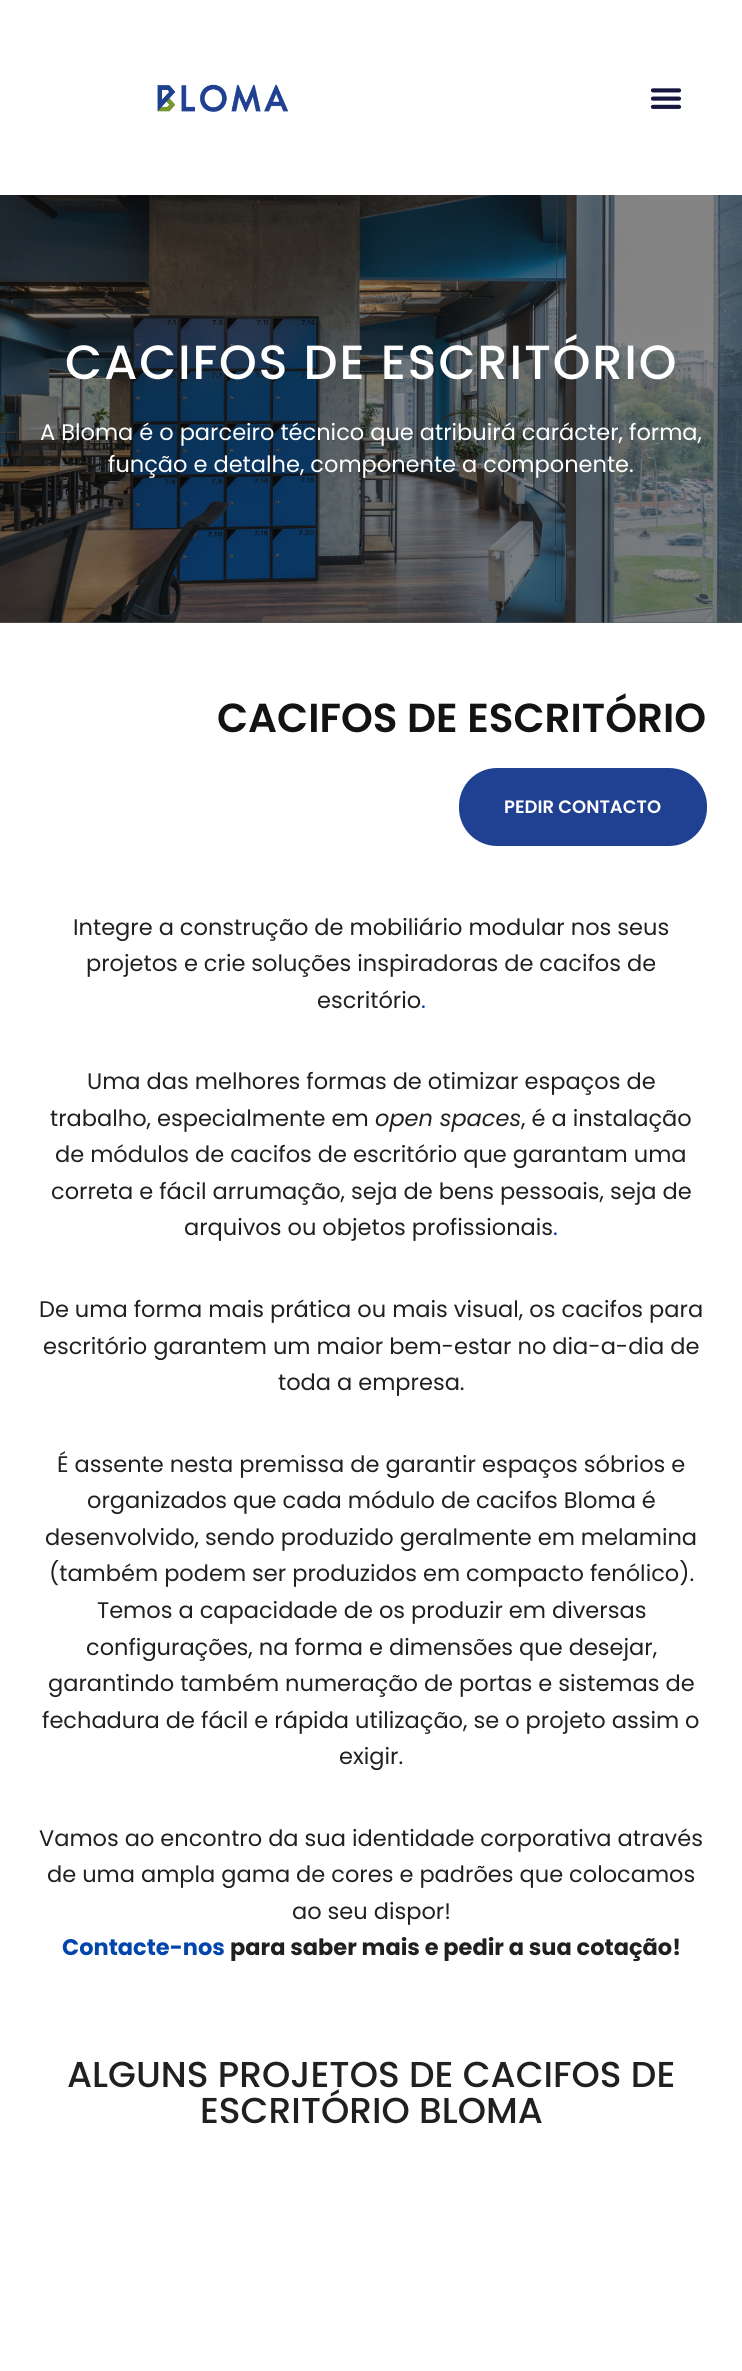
import math
import cairo

surface = cairo.ImageSurface(cairo.FORMAT_RGB24, 742, 2371)
ctx = cairo.Context(surface)
options = cairo.FontOptions()
options.set_hint_metrics(cairo.HINT_METRICS_OFF)
options.set_hint_style(cairo.HINT_STYLE_NONE)
ctx.set_font_options(options)
ctx.set_miter_limit(4)


def set_color(code):
    ctx.set_source_rgb(*(v / 255 for v in bytes.fromhex(code[-6:])))


def draw_text(x, y, s, family, size, color, bold=False, italic=False):
    ctx.select_font_face(family, cairo.FONT_SLANT_ITALIC if italic else cairo.FONT_SLANT_NORMAL, cairo.FONT_WEIGHT_BOLD if bold else cairo.FONT_WEIGHT_NORMAL)
    ctx.set_font_size(size)
    set_color(color)
    ctx.move_to(x, y)
    ctx.show_text(s)


def draw_spaced(x, y, s, letter, word):
    ctx.move_to(x, y)
    for ch in s:
        ctx.show_text(ch)
        ctx.rel_move_to(letter + word * (ch == ' '), 0)


def fill_rect(x, y, w, h, color):
    set_color(color)
    ctx.rectangle(x, y, w, h)
    ctx.fill()


def rounded_rect(x, y, w, h, r):
    ctx.new_sub_path()
    for i, (u, v) in enumerate([(x + w - r, y + h - r), (x + r, y + h - r), (x + r, y + r), (x + w - r, y + r)]):
        ctx.arc(u, v, r, i * math.pi / 2, (i + 1) * math.pi / 2)
    ctx.close_path()


def draw_image(path, x, y, w, h):
    ctx.save()
    ctx.set_source_surface(cairo.ImageSurface.create_from_png(path), x, y)
    ctx.rectangle(x, y, w, h)
    ctx.fill()
    ctx.restore()


set_color("#ffffff")
ctx.paint()
draw_image("assets/img1.png", 157, 84, 132, 28)
draw_image("assets/img2.png", 650, 88, 32, 21)
fill_rect(0, 622, 742, 1, "#5c5c5c")
draw_image("assets/img3.png", 0, 195, 742, 428)
ctx.select_font_face("Poppins Medium")
ctx.set_font_size(48)
set_color("#ffffff")
draw_spaced(65, 379, "CACIFOS DE ESCRITÓRIO", 1.8, 0)
draw_text(40, 440, "A Bloma é o parceiro técnico que atribuirá carácter, forma,", "Poppins", 22.5, "#ffffff")
draw_text(108, 472, "função e detalhe, componente a componente.", "Poppins", 22.5, "#ffffff")
draw_text(217, 732, "CACIFOS DE ESCRITÓRIO", "Poppins SemiBold", 40.5, "#131313")
set_color("#204191")
rounded_rect(459, 768, 248, 78, 38)
ctx.fill()
draw_text(504, 813, "PEDIR CONTACTO", "Poppins SemiBold", 18, "#ffffff")
draw_text(73, 935, "Integre a construção de mobiliário modular nos seus", "Poppins", 22.5, "#202020")
draw_text(86, 971, "projetos e crie soluções inspiradoras de cacifos de", "Poppins", 22.5, "#202020")
draw_text(317, 1008, "escritório", "Poppins", 22.5, "#202020")
draw_text(421, 1008, ".", "Poppins", 22.5, "#0246ad")
draw_text(87, 1089, "Uma das melhores formas de otimizar espaços de", "Poppins", 22.5, "#202020")
draw_text(50, 1126, "trabalho, especialmente em", "Poppins", 22.5, "#202020")
draw_text(375, 1126, "open spaces", "Poppins", 22.5, "#202020", italic=True)
draw_text(521, 1126, ", é a instalação", "Poppins", 22.5, "#202020")
draw_text(55, 1162, "de módulos de cacifos de escritório que garantam uma", "Poppins", 22.5, "#202020")
draw_text(51, 1199, "correta e fácil arrumação, seja de bens pessoais, seja de", "Poppins", 22.5, "#202020")
draw_text(184, 1235, "arquivos ou objetos profissionais", "Poppins", 22.5, "#202020")
draw_text(553, 1235, ".", "Poppins", 22.5, "#0246ad")
draw_text(39, 1317, "De uma forma mais prática ou mais visual, os cacifos para", "Poppins", 22.5, "#202020")
draw_text(43, 1354, "escritório garantem um maior bem-estar no dia-a-dia de", "Poppins", 22.5, "#202020")
draw_text(278, 1390, "toda a empresa.", "Poppins", 22.5, "#202020")
draw_text(57, 1472, "É assente nesta premissa de garantir espaços sóbrios e", "Poppins", 22.5, "#202020")
draw_text(87, 1508, "organizados que cada módulo de cacifos Bloma é", "Poppins", 22.5, "#202020")
draw_text(45, 1545, "desenvolvido, sendo produzido geralmente em melamina", "Poppins", 22.5, "#202020")
draw_text(49, 1581, "(também podem ser produzidos em compacto fenólico).", "Poppins", 22.5, "#202020")
draw_text(97, 1618, "Temos a capacidade de os produzir em diversas", "Poppins", 22.5, "#202020")
draw_text(86, 1655, "configurações, na forma e dimensões que desejar,", "Poppins", 22.5, "#202020")
draw_text(48, 1691, "garantindo também numeração de portas e sistemas de", "Poppins", 22.5, "#202020")
draw_text(42, 1728, "fechadura de fácil e rápida utilização, se o projeto assim o", "Poppins", 22.5, "#202020")
draw_text(339, 1764, "exigir.", "Poppins", 22.5, "#202020")
draw_text(39, 1846, "Vamos ao encontro da sua identidade corporativa através", "Poppins", 22.5, "#202020")
draw_text(47, 1882, "de uma ampla gama de cores e padrões que colocamos", "Poppins", 22.5, "#202020")
draw_text(292, 1919, "ao seu dispor!", "Poppins", 22.5, "#202020")
draw_text(62, 1955, "Contacte-nos", "Poppins", 22.5, "#0246ad", bold=True)
draw_text(230, 1955, "para saber mais e pedir a sua cotação!", "Poppins", 22.5, "#202020", bold=True)
draw_text(67, 2087, "ALGUNS PROJETOS DE CACIFOS DE", "Poppins Medium", 36, "#202020")
draw_text(200, 2123, "ESCRITÓRIO BLOMA", "Poppins Medium", 36, "#202020")
surface.write_to_png("output.png")
